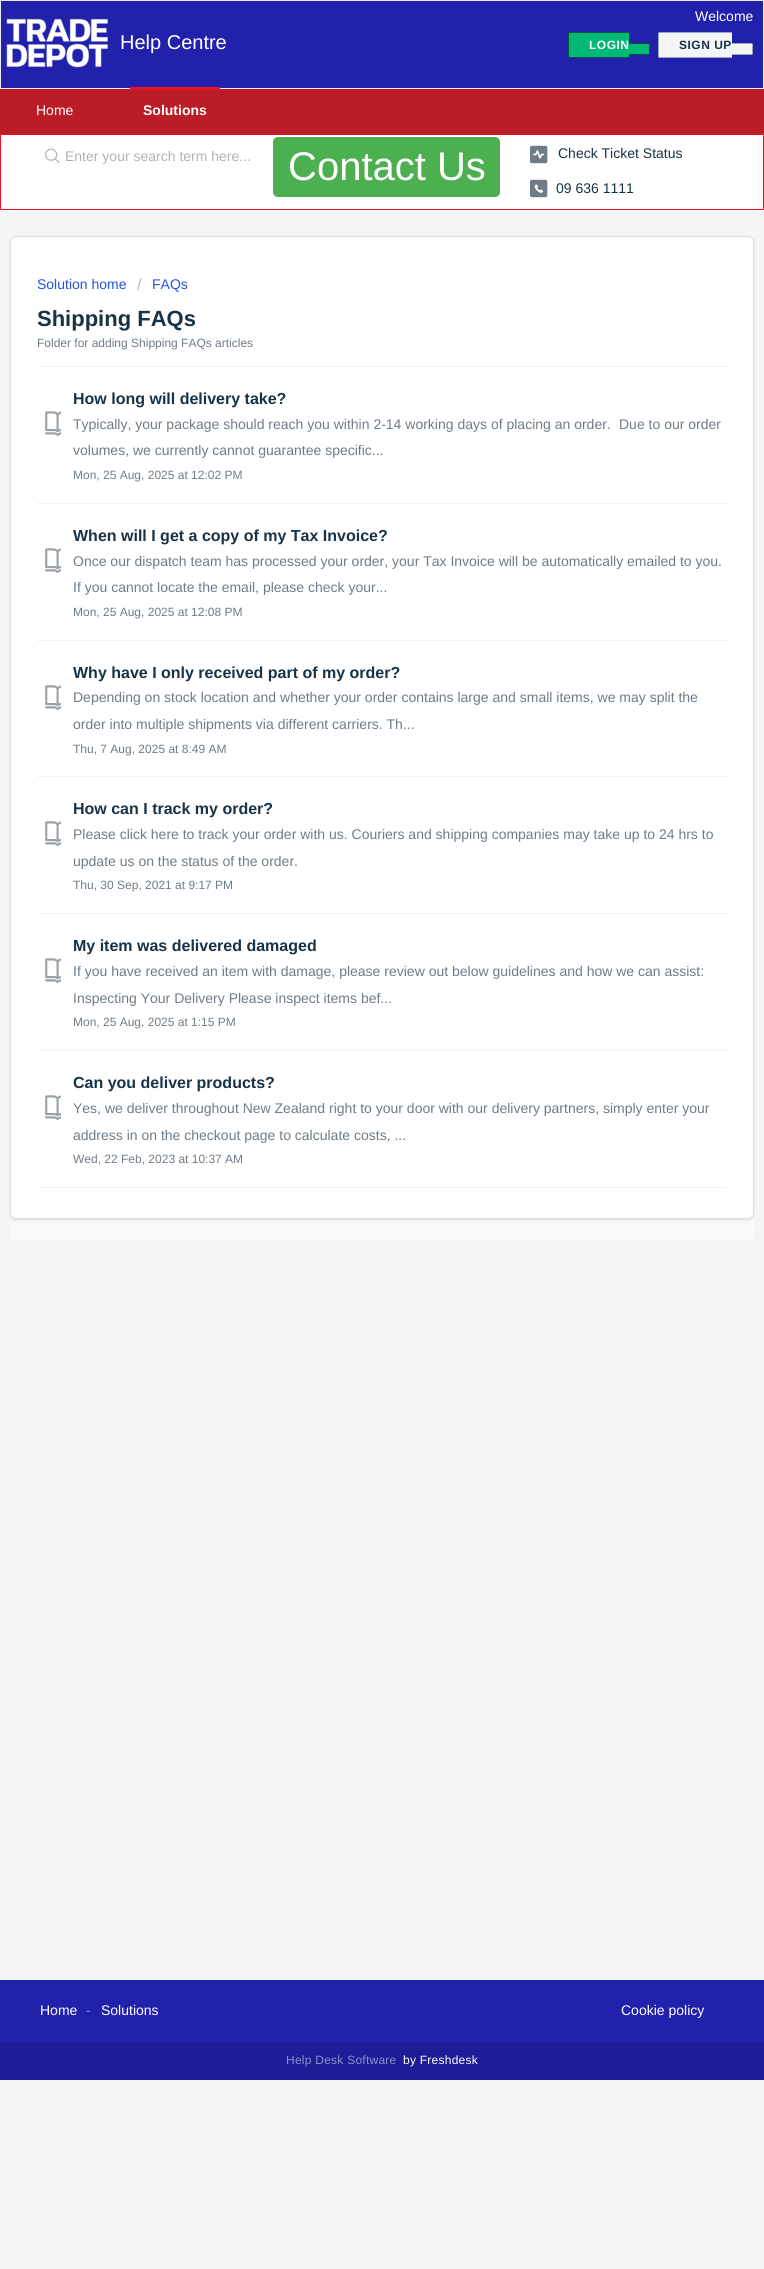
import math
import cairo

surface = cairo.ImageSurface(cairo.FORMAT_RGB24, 764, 2269)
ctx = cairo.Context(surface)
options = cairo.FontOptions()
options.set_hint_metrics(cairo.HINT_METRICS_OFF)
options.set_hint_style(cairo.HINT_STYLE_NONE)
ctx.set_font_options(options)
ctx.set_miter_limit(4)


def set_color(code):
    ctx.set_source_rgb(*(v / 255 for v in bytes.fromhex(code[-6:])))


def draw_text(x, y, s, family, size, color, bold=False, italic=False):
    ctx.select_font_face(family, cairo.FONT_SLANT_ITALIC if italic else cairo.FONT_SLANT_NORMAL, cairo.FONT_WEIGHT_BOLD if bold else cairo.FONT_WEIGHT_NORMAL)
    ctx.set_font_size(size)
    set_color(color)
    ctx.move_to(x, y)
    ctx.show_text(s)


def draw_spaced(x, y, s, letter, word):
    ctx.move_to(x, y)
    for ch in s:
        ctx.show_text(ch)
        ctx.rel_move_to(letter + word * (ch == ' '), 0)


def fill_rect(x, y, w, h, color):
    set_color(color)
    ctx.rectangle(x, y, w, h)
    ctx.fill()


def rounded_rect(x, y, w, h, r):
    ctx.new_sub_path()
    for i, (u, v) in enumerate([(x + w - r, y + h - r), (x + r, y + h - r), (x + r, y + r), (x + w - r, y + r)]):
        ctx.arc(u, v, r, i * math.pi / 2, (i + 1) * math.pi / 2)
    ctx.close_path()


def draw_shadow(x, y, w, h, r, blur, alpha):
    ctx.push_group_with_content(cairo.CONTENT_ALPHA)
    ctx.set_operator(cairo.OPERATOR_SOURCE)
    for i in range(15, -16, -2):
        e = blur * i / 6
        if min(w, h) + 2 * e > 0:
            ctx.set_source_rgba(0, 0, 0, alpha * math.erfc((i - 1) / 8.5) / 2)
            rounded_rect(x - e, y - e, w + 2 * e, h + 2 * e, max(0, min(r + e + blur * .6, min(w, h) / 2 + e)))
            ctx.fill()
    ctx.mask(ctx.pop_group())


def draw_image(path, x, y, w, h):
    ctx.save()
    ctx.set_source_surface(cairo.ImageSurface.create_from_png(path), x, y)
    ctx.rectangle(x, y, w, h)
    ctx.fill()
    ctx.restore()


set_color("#f3f5f7")
ctx.paint()
set_color("#2121ac")
ctx.rectangle(0.5, 0.5, 763, 88)
ctx.fill_preserve()
set_color("#ebeef0")
ctx.set_line_width(1)
ctx.stroke()
draw_image("assets/img1.png", 6, 18, 102, 50)
draw_text(120, 49, "Help Centre", "Liberation Sans", 20, "#ffffff")
draw_text(695, 21, "Welcome", "Liberation Sans", 14, "#ffffff")
set_color("#02b875")
ctx.new_path()
ctx.move_to(570, 32)
ctx.line_to(629, 32)
ctx.line_to(629, 58)
ctx.line_to(570, 58)
ctx.curve_to(569, 58, 568, 57, 568, 56)
ctx.line_to(568, 34)
ctx.curve_to(568, 33, 569, 32, 570, 32)
ctx.close_path()
ctx.fill()
ctx.select_font_face("Liberation Sans", cairo.FONT_SLANT_NORMAL, cairo.FONT_WEIGHT_BOLD)
ctx.set_font_size(12)
set_color("#ffffff")
draw_spaced(589, 49, "LOGIN", 0.5, 0)
fill_rect(569, 32, 60, 1, "#015335")
fill_rect(569, 57, 60, 1, "#015335")
fill_rect(568, 33, 1, 24, "#015335")
set_color("#02b875")
ctx.new_path()
ctx.move_to(629, 43)
ctx.line_to(648, 43)
ctx.curve_to(649, 43, 650, 44, 650, 45)
ctx.line_to(650, 53)
ctx.curve_to(650, 54, 649, 55, 648, 55)
ctx.line_to(629, 55)
ctx.close_path()
ctx.fill()
fill_rect(629, 43, 20, 1, "#015335")
fill_rect(649, 44, 1, 10, "#015335")
fill_rect(629, 54, 20, 1, "#015335")
set_color("#f3f5f7")
ctx.new_path()
ctx.move_to(660, 32)
ctx.line_to(732, 32)
ctx.line_to(732, 58)
ctx.line_to(660, 58)
ctx.curve_to(659, 58, 658, 57, 658, 56)
ctx.line_to(658, 34)
ctx.curve_to(658, 33, 659, 32, 660, 32)
ctx.close_path()
ctx.fill()
set_color("#183247")
draw_spaced(679, 49, "SIGN UP", 0.5, 0)
fill_rect(659, 32, 73, 1, "#97a9ba")
fill_rect(659, 57, 73, 1, "#97a9ba")
fill_rect(658, 33, 1, 24, "#97a9ba")
set_color("#f3f5f7")
ctx.new_path()
ctx.move_to(732, 43)
ctx.line_to(751, 43)
ctx.curve_to(752, 43, 753, 44, 753, 45)
ctx.line_to(753, 53)
ctx.curve_to(753, 54, 752, 55, 751, 55)
ctx.line_to(732, 55)
ctx.close_path()
ctx.fill()
fill_rect(732, 43, 20, 1, "#97a9ba")
fill_rect(752, 44, 1, 10, "#97a9ba")
fill_rect(732, 54, 20, 1, "#97a9ba")
fill_rect(0, 89, 764, 45, "#ba1d26")
draw_text(36, 115, "Home", "Liberation Sans", 14, "#ffffff")
fill_rect(130, 87, 90, 3, "#ea1226")
draw_text(143, 115, "Solutions", "Liberation Sans", 14, "#ffffff", bold=True)
ctx.rectangle(0.5, 134.5, 763, 75)
ctx.fill_preserve()
set_color("#ea1226")
ctx.stroke()
draw_image("assets/img2.png", 45, 148, 15, 15)
draw_text(65, 161, "Enter your search term here...", "Liberation Sans", 14, "#b2b2b2")
set_color("#4caf50")
rounded_rect(273, 137, 227, 60, 5)
ctx.fill()
draw_text(288, 180, "Contact Us", "Liberation Sans", 40, "#ffffff")
draw_image("assets/img3.png", 530, 145, 18, 19)
draw_text(558, 158, "Check Ticket Status", "Liberation Sans", 14, "#183247")
draw_image("assets/img4.png", 530, 179, 18, 19)
draw_text(556, 193, "09 636 1111", "Liberation Sans", 14, "#183247")
fill_rect(10, 236, 744, 1003, "#f8f9fa")
set_color("#3f3f44")
draw_shadow(10, 237, 744, 983, 6, 1, 0.15)
set_color("#ffffff")
rounded_rect(10.5, 236.5, 743, 982, 5.5)
ctx.fill_preserve()
set_color("#dadfe3")
ctx.stroke()
draw_text(37, 289, "Solution home", "Liberation Sans", 14, "#2753d7")
draw_text(137, 290, "/", "Liberation Sans", 16, "#bbbbbb")
draw_text(152, 289, "FAQs", "Liberation Sans", 14, "#2753d7")
draw_text(37, 326, "Shipping FAQs", "Liberation Sans", 22, "#183247", bold=True)
draw_text(37, 347, "Folder for adding Shipping FAQs articles", "Liberation Sans", 12, "#6f7c87")
fill_rect(37, 1187, 690, 1, "#f3f3f3")
fill_rect(37, 366, 690, 1, "#f3f3f3")
draw_text(73, 404, "How long will delivery take?", "Liberation Sans", 16, "#183247", bold=True)
draw_image("assets/img5.png", 45, 411, 16, 26)
draw_text(73, 429, "Typically, your package should reach you within 2-14 working days of placing an order.", "Liberation Sans", 14, "#6f7c87")
draw_text(619, 429, "Due to our order", "Liberation Sans", 14, "#6f7c87")
draw_text(73, 455, "volumes, we currently cannot guarantee specific...", "Liberation Sans", 14, "#6f7c87")
draw_text(73, 479, "Mon, 25 Aug, 2025 at 12:02 PM", "Liberation Sans", 12, "#6f7c87")
fill_rect(37, 503, 690, 1, "#f3f3f3")
draw_text(73, 541, "When will I get a copy of my Tax Invoice?", "Liberation Sans", 16, "#183247", bold=True)
draw_image("assets/img5.png", 45, 548, 16, 26)
draw_text(73, 566, "Once our dispatch team has processed your order, your Tax Invoice will be automatically emailed to you.", "Liberation Sans", 14, "#6f7c87")
draw_text(73, 592, "If you cannot locate the email, please check your...", "Liberation Sans", 14, "#6f7c87")
draw_text(73, 616, "Mon, 25 Aug, 2025 at 12:08 PM", "Liberation Sans", 12, "#6f7c87")
fill_rect(37, 640, 690, 1, "#f3f3f3")
draw_text(73, 678, "Why have I only received part of my order?", "Liberation Sans", 16, "#183247", bold=True)
draw_image("assets/img5.png", 45, 685, 16, 26)
draw_text(73, 702, "Depending on stock location and whether your order contains large and small items, we may split the", "Liberation Sans", 14, "#6f7c87")
draw_text(73, 729, "order into multiple shipments via different carriers. Th...", "Liberation Sans", 14, "#6f7c87")
draw_text(73, 753, "Thu, 7 Aug, 2025 at 8:49 AM", "Liberation Sans", 12, "#6f7c87")
fill_rect(37, 776, 690, 1, "#f3f3f3")
draw_text(73, 814, "How can I track my order?", "Liberation Sans", 16, "#183247", bold=True)
draw_image("assets/img5.png", 45, 821, 16, 26)
draw_text(73, 839, "Please click here to track your order with us. Couriers and shipping companies may take up to 24 hrs to", "Liberation Sans", 14, "#6f7c87")
draw_text(73, 866, "update us on the status of the order.", "Liberation Sans", 14, "#6f7c87")
draw_text(73, 889, "Thu, 30 Sep, 2021 at 9:17 PM", "Liberation Sans", 12, "#6f7c87")
fill_rect(37, 913, 690, 1, "#f3f3f3")
draw_text(73, 951, "My item was delivered damaged", "Liberation Sans", 16, "#183247", bold=True)
draw_image("assets/img5.png", 45, 958, 16, 26)
draw_text(73, 976, "If you have received an item with damage, please review out below guidelines and how we can assist:", "Liberation Sans", 14, "#6f7c87")
draw_text(73, 1003, "Inspecting Your Delivery Please inspect items bef...", "Liberation Sans", 14, "#6f7c87")
draw_text(73, 1026, "Mon, 25 Aug, 2025 at 1:15 PM", "Liberation Sans", 12, "#6f7c87")
fill_rect(37, 1050, 690, 1, "#f3f3f3")
draw_text(73, 1088, "Can you deliver products?", "Liberation Sans", 16, "#183247", bold=True)
draw_image("assets/img5.png", 45, 1095, 16, 26)
draw_text(73, 1113, "Yes, we deliver throughout New Zealand right to your door with our delivery partners, simply enter your", "Liberation Sans", 14, "#6f7c87")
draw_text(73, 1140, "address in on the checkout page to calculate costs, ...", "Liberation Sans", 14, "#6f7c87")
draw_text(73, 1163, "Wed, 22 Feb, 2023 at 10:37 AM", "Liberation Sans", 12, "#6f7c87")
fill_rect(0, 1980, 764, 62, "#2121ac")
draw_text(40, 2015, "Home", "Liberation Sans", 14, "#ffffff")
draw_text(86, 2015, "-", "Liberation Sans", 14, "#9090d6")
draw_text(101, 2015, "Solutions", "Liberation Sans", 14, "#ffffff")
draw_text(621, 2015, "Cookie policy", "Liberation Sans", 14, "#ffffff")
fill_rect(0, 2042, 764, 38, "#1d1d97")
ctx.set_font_size(12)
set_color("#8e8ecb")
draw_spaced(286, 2064, "Help Desk Software", 0.25, 0)
set_color("#ffffff")
draw_spaced(403, 2064, "by Freshdesk", 0.25, 0)
surface.write_to_png("output.png")
